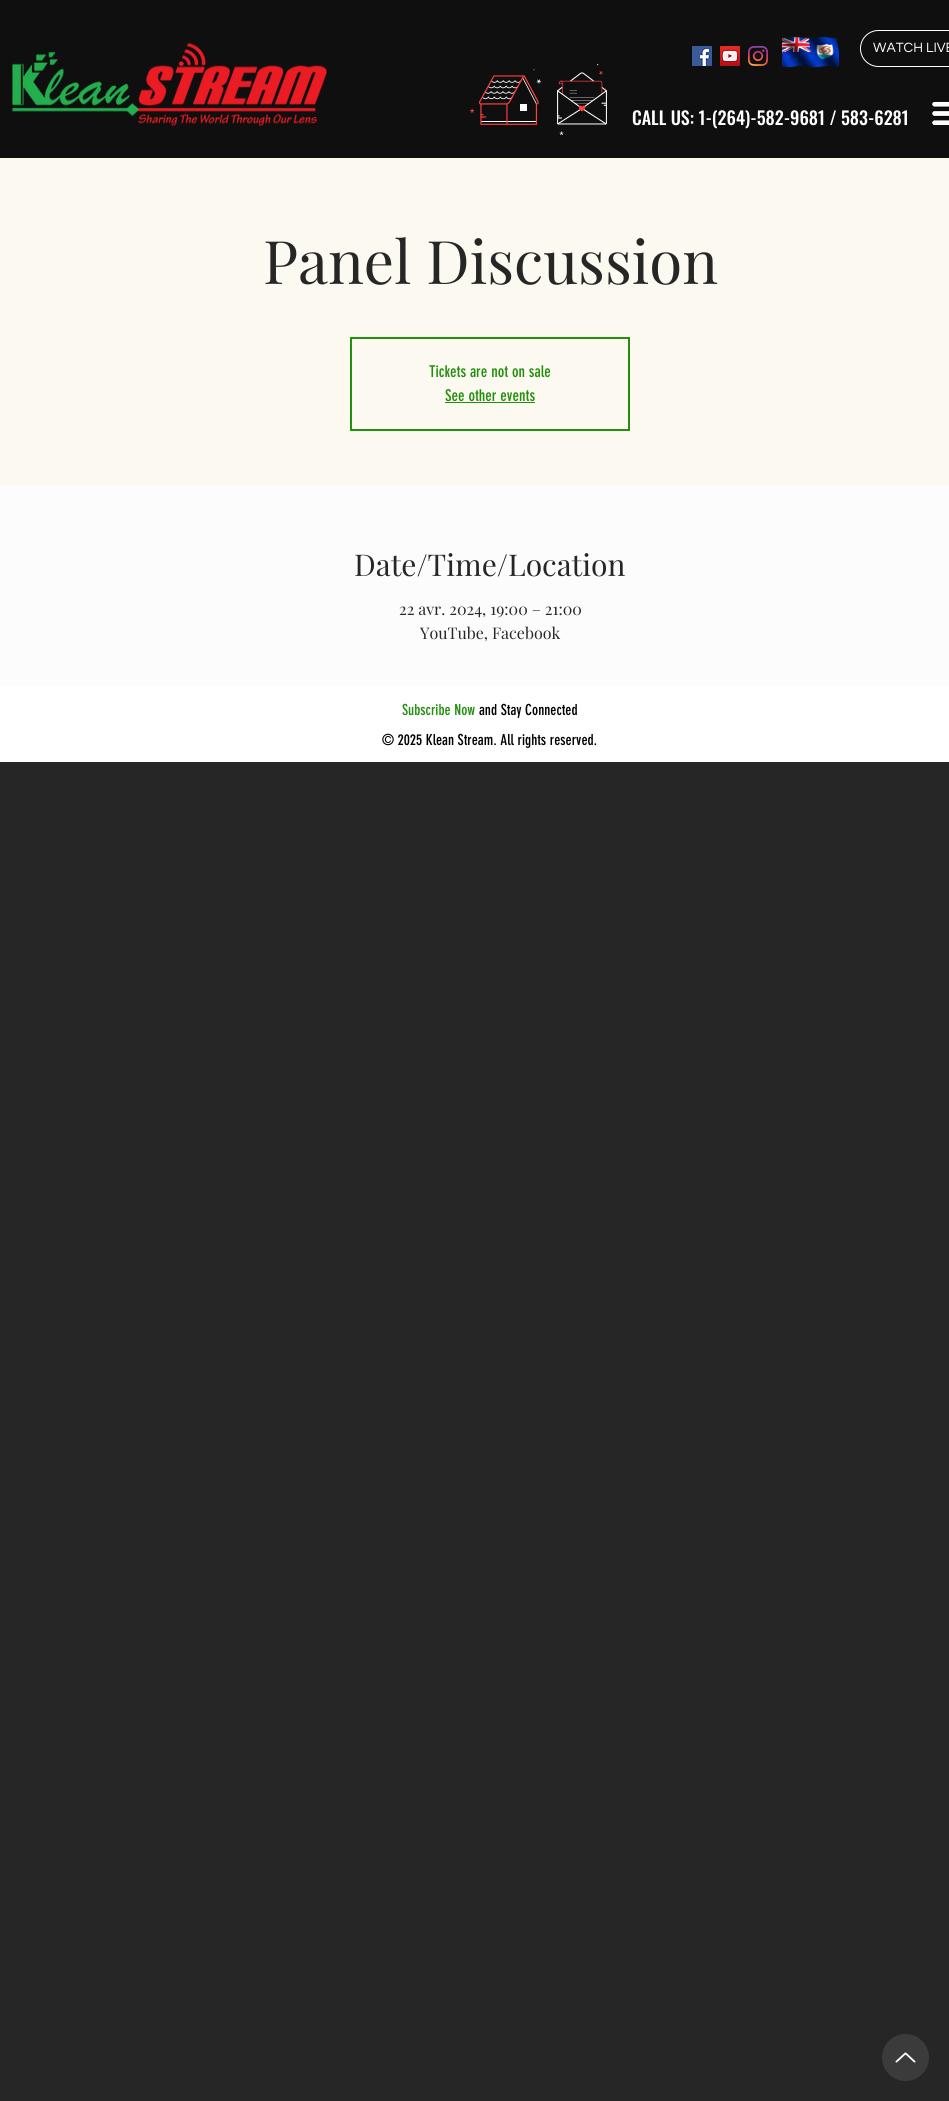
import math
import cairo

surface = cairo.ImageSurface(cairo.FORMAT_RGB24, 949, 2101)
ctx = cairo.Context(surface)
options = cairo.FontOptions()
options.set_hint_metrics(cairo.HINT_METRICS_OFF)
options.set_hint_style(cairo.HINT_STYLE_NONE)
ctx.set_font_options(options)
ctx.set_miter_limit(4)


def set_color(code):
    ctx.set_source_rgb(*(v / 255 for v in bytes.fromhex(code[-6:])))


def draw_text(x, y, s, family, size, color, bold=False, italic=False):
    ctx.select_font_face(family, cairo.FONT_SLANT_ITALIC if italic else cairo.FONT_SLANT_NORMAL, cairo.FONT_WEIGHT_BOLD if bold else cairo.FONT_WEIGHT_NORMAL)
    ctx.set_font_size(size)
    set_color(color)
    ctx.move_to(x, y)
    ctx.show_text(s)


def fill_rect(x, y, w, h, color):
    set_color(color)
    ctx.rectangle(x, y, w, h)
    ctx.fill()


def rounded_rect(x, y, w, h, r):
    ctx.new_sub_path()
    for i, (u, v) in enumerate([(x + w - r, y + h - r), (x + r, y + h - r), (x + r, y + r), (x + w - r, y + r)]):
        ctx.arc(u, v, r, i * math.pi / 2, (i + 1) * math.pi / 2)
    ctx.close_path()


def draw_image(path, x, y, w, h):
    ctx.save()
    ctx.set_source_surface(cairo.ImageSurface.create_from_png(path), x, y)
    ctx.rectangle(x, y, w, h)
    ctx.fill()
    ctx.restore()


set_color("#262626")
ctx.paint()
fill_rect(0, 0, 949, 158, "#0f0f0f")
draw_image("assets/img1.png", 12, 42, 315, 85)
draw_image("assets/img2.png", 692, 46, 20, 20)
draw_image("assets/img3.png", 720, 46, 20, 20)
draw_image("assets/img4.png", 748, 46, 20, 20)
draw_image("assets/img5.png", 782, 36, 57, 32)
rounded_rect(860.5, 30.5, 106, 36, 18)
set_color("#ffffff")
ctx.set_line_width(1)
ctx.stroke()
draw_text(873, 52, "WATCH LIVE", "Questrial", 14, "#ffffff")
draw_image("assets/img6.png", 470, 69, 71, 56)
draw_image("assets/img7.png", 557, 64, 50, 71)
draw_text(632, 125, "CALL US: 1-(264)-582-9681 / 583-6281", "Oswald Medium", 18, "#ffffff")
draw_image("assets/img8.png", 932, 101, 17, 25)
fill_rect(0, 158, 949, 327, "#fcf9f0")
draw_text(263, 284, "Panel Discussion", "Playfair Display", 60, "#262626")
ctx.rectangle(351, 338, 278, 92)
set_color("#228f0e")
ctx.set_line_width(2)
ctx.stroke()
draw_text(429, 377, "Tickets are not on sale", "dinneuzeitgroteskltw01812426", 16, "#228f0e")
draw_text(445, 401, "See other events", "dinneuzeitgroteskltw01812426", 16, "#228f0e")
fill_rect(445, 402, 90, 1, "#228f0e")
fill_rect(0, 485, 949, 201, "#fcfcfc")
draw_text(354, 576, "Date/Time/Location", "Playfair Display", 30, "#262626")
draw_text(399, 615, "22 avr. 2024, 19:00 – 21:00", "Playfair Display", 16, "#262626")
draw_text(420, 639, "YouTube, Facebook", "Playfair Display", 16, "#262626")
fill_rect(0, 686, 949, 76, "#ffffff")
draw_text(402, 715, "Subscribe Now", "dinneuzeitgroteskltw01812426", 15, "#228f0e")
draw_text(479, 715, "and Stay Connected", "dinneuzeitgroteskltw01812426", 15, "#000000")
draw_text(382, 745, "© 2025 Klean Stream. All rights reserved.", "dinneuzeitgroteskltw01812426", 15, "#000000")
set_color("#3b3b3b")
ctx.new_path()
ctx.arc(905.5, 2057.5, 23.5, 0, 2 * math.pi)
ctx.fill()
draw_image("assets/img9.png", 895, 2052, 21, 11)
surface.write_to_png("output.png")
